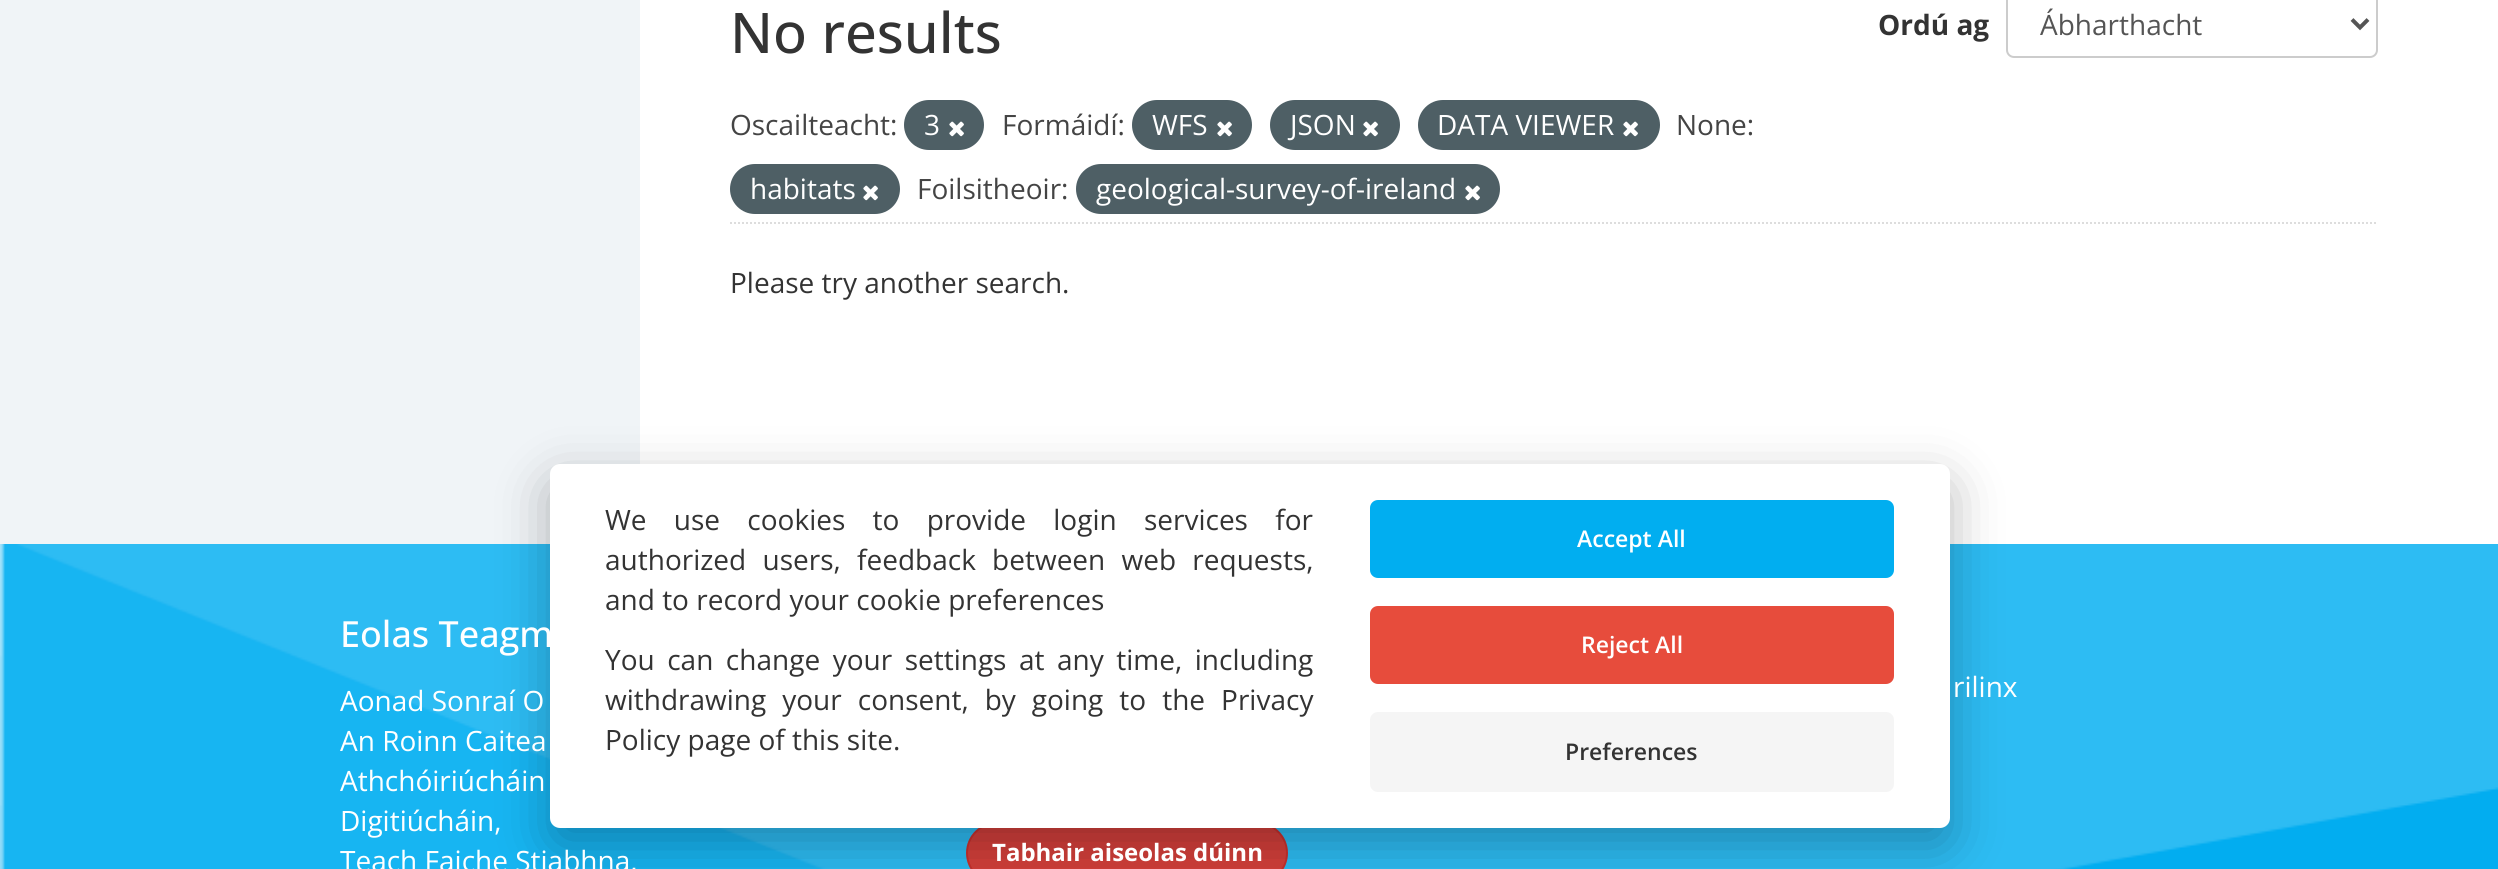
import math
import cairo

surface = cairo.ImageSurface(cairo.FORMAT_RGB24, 2498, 869)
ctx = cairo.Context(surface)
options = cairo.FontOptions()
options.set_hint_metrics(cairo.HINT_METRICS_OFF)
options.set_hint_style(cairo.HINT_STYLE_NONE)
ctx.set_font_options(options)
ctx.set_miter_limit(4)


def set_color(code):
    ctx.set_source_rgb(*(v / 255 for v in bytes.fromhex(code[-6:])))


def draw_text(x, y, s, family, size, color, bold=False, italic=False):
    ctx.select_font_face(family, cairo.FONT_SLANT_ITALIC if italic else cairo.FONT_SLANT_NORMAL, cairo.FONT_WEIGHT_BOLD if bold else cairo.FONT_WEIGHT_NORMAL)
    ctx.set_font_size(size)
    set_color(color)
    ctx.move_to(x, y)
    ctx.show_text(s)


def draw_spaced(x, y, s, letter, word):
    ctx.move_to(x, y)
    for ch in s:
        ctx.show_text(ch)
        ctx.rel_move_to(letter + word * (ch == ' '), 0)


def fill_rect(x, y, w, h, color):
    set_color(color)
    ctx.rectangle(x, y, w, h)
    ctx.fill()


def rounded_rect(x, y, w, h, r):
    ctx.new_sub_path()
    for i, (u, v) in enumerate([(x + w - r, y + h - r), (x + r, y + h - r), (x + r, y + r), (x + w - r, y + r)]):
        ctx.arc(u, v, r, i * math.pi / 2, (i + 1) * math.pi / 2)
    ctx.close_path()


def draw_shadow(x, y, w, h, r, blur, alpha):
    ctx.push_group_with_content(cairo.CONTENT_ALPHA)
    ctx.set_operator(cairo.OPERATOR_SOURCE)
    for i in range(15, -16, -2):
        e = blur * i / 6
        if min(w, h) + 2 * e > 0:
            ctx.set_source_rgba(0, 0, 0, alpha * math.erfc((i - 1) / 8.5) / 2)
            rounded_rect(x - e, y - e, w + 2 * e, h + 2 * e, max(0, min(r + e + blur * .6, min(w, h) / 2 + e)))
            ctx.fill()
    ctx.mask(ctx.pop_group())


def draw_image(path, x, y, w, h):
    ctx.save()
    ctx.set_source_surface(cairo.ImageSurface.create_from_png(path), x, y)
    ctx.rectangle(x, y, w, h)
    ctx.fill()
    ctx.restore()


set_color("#f0f4f7")
ctx.paint()
fill_rect(2460, 0, 38, 544, "#ffffff")
rounded_rect(30, -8, 2438, 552, 8)
ctx.fill()
fill_rect(30, 0, 610, 544, "#f0f4f7")
ctx.new_path()
ctx.move_to(730, 223)
ctx.line_to(2378, 223)
set_color("#dddddd")
ctx.set_dash([2, 2])
ctx.stroke()
draw_text(730, 53, "No results", "Open Sans Medium", 56, "#333333")
draw_text(1878, 35, "Ordú ag", "Open Sans", 28, "#333333", bold=True)
rounded_rect(2007, -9, 370, 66, 7)
set_color("#cccccc")
ctx.set_dash([])
ctx.stroke()
ctx.new_path()
ctx.move_to(2352, 19.5)
ctx.line_to(2360, 27.5)
ctx.line_to(2368, 19.5)
set_color("#555555")
ctx.set_line_width(4)
ctx.stroke()
draw_text(2040, 35, "Ábharthacht", "Open Sans", 28, "#555555")
draw_text(730, 135, "Oscailteacht:", "Open Sans", 28, "#444444")
set_color("#4e5f65")
rounded_rect(904, 100, 80, 50, 25)
ctx.fill()
draw_text(924, 135, "3", "Open Sans", 28, "#ffffff")
draw_image("assets/img1.png", 949, 121, 15, 16)
draw_text(1002, 135, "Formáidí:", "Open Sans", 28, "#444444")
set_color("#4e5f65")
rounded_rect(1132, 100, 120, 50, 25)
ctx.fill()
draw_text(1152, 135, "WFS", "Open Sans", 28, "#ffffff")
draw_image("assets/img1.png", 1217, 121, 15, 16)
set_color("#4e5f65")
rounded_rect(1270, 100, 130, 50, 25)
ctx.fill()
draw_text(1290, 135, "JSON", "Open Sans", 28, "#ffffff")
draw_image("assets/img1.png", 1363, 121, 15, 16)
set_color("#4e5f65")
rounded_rect(1418, 100, 242, 50, 25)
ctx.fill()
draw_text(1437, 135, "DATA VIEWER", "Open Sans", 28, "#ffffff")
draw_image("assets/img1.png", 1623, 121, 15, 16)
draw_text(1676, 135, "None:", "Open Sans", 28, "#444444")
set_color("#4e5f65")
rounded_rect(730, 164, 170, 50, 25)
ctx.fill()
draw_text(750, 199, "habitats", "Open Sans", 28, "#ffffff")
draw_image("assets/img1.png", 863, 185, 15, 16)
draw_text(917, 199, "Foilsitheoir:", "Open Sans", 28, "#444444")
set_color("#4e5f65")
rounded_rect(1076, 164, 424, 50, 25)
ctx.fill()
draw_text(1096, 199, "geological-survey-of-ireland", "Open Sans", 28, "#ffffff")
draw_image("assets/img1.png", 1465, 185, 15, 16)
draw_text(730, 293, "Please try another search.", "Open Sans", 28, "#333333")
draw_image("assets/img2.png", 0, 544, 2498, 325)
set_color("#d43f3a")
rounded_rect(967, 823, 320, 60, 30)
ctx.fill_preserve()
set_color("#c9302c")
ctx.set_line_width(2)
ctx.stroke()
set_color("#020203")
draw_shadow(550, 482, 1400, 364, 10, 26, 0.28)
set_color("#ffffff")
rounded_rect(550, 464, 1400, 364, 10)
ctx.fill()
set_color("#333333")
draw_spaced(605, 530, "We use cookies to provide login services for", 0, 20)
draw_spaced(605, 570, "authorized users, feedback between web requests,", 0, 9)
draw_text(605, 610, "and to record your cookie preferences", "Open Sans", 28, "#333333")
draw_spaced(605, 670, "You can change your settings at any time, including", 0, 5.25)
draw_spaced(605, 710, "withdrawing your consent, by going to the Privacy", 0, 8.75)
draw_text(605, 750, "Policy page of this site.", "Open Sans", 28, "#333333")
set_color("#01aef0")
rounded_rect(1370, 500, 524, 78, 8)
ctx.fill()
draw_text(1577, 547, "Accept All", "Open Sans SemiBold", 23, "#ffffff")
set_color("#e74c3c")
rounded_rect(1370, 606, 524, 78, 8)
ctx.fill()
draw_text(1581, 653, "Reject All", "Open Sans SemiBold", 23, "#ffffff")
set_color("#f5f5f5")
rounded_rect(1370, 712, 524, 80, 8)
ctx.fill()
draw_text(1565, 760, "Preferences", "Open Sans SemiBold", 23, "#333333")
draw_text(340, 647, "Eolas Teagm", "Open Sans Medium", 36, "#ffffff")
draw_text(340, 711, "Aonad Sonraí O", "Open Sans", 28, "#ffffff")
draw_text(340, 751, "An Roinn Caitea", "Open Sans", 28, "#ffffff")
draw_text(340, 791, "Athchóiriúcháin", "Open Sans", 28, "#ffffff")
draw_text(340, 831, "Digitiúcháin,", "Open Sans", 28, "#ffffff")
draw_text(340, 871, "Teach Faiche Stiabhna,", "Open Sans", 28, "#ffffff")
draw_text(1953, 697, "rilinx", "Open Sans", 28, "#ffffff")
draw_text(992, 861, "Tabhair aiseolas dúinn", "Open Sans", 24, "#ffffff", bold=True)
surface.write_to_png("output.png")
